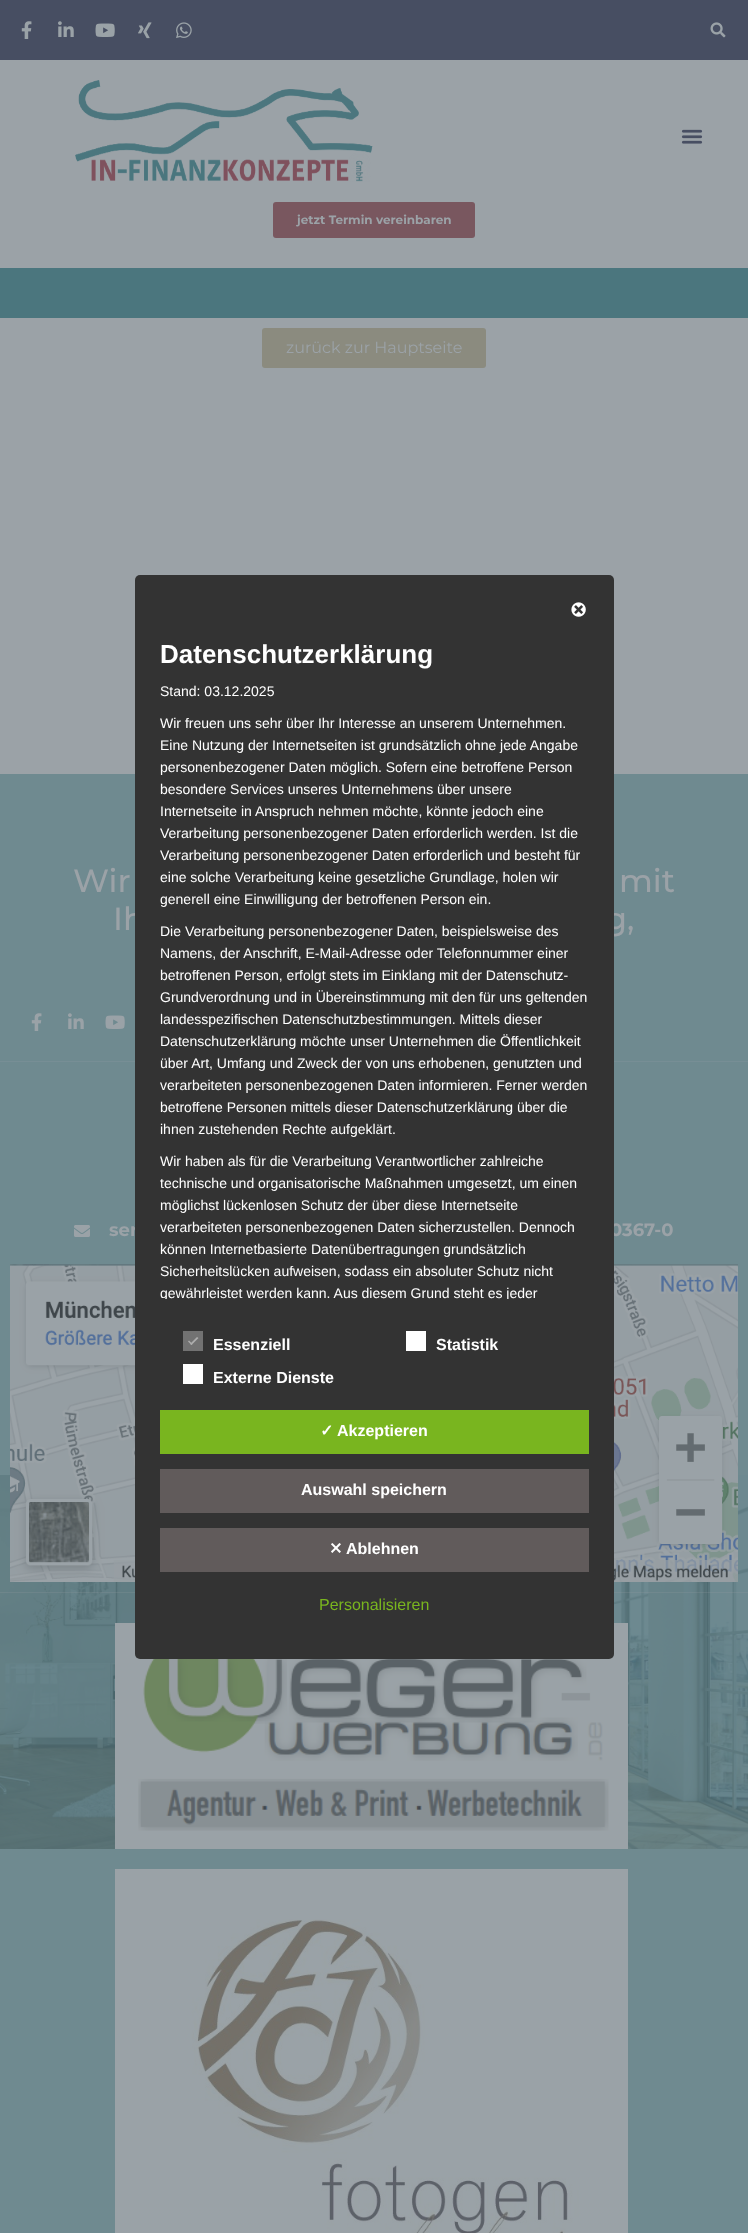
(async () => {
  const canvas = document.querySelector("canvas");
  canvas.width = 748;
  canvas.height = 2233;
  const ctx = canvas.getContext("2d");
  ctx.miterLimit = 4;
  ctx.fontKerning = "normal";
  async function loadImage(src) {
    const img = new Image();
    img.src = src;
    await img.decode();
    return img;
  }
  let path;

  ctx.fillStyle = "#9ba2a7";
  ctx.fillRect(0, 0, 748, 2233);
  ctx.fillStyle = "#6f8a90";
  ctx.fillRect(0, 774, 748, 1459);
  ctx.fillStyle = "#474e62";
  ctx.fillRect(0, 0, 748, 60);
  ctx.drawImage(await loadImage("img/1.png"), 21, 21, 11, 18);
  ctx.drawImage(await loadImage("img/2.png"), 58, 21, 16, 16);
  ctx.drawImage(await loadImage("img/3.png"), 95, 23, 20, 14);
  ctx.drawImage(await loadImage("img/4.png"), 138, 22, 14, 17);
  ctx.drawImage(await loadImage("img/5.png"), 176, 22, 16, 17);
  ctx.drawImage(await loadImage("img/6.png"), 710, 22, 16, 16);
  ctx.drawImage(await loadImage("img/7.png"), 75, 80, 298, 102);
  ctx.drawImage(await loadImage("img/8.png"), 681, 129, 22, 15);
  ctx.fillStyle = "#79575f";
  ctx.beginPath();
  ctx.roundRect(273, 202, 202, 36, 3);
  ctx.fill();
  ctx.fillStyle = "#4b767e";
  ctx.fillRect(0, 268, 748, 50);
  ctx.fillStyle = "#8b8b7f";
  ctx.beginPath();
  ctx.roundRect(262, 328, 224, 40, 3);
  ctx.fill();
  ctx.drawImage(await loadImage("img/10.png"), 0, 1475, 748, 374);
  ctx.fillStyle = "#778e95";
  ctx.fillRect(0, 1061, 748, 1);
  ctx.drawImage(await loadImage("img/11.png"), 31, 1013, 11, 18);
  ctx.drawImage(await loadImage("img/12.png"), 68, 1013, 16, 16);
  ctx.drawImage(await loadImage("img/13.png"), 105, 1015, 20, 14);
  ctx.drawImage(await loadImage("img/14.png"), 74, 1225, 16, 12);
  ctx.drawImage(await loadImage("img/15.png"), 10, 1264, 728, 318);
  ctx.fillStyle = "rgba(155, 162, 167, 0.2)";
  ctx.fillRect(0, 1592, 748, 1);
  ctx.drawImage(await loadImage("img/16.png"), 115, 1623, 513, 226);
  ctx.drawImage(await loadImage("img/17.png"), 115, 1869, 513, 364);
  ctx.font = "bold 12px Montserrat";
  ctx.fillStyle = "#9ba2a7";
  ctx.fillText("jetzt Termin vereinbaren", 297, 224);
  ctx.font = "16px Montserrat";
  ctx.fillText("zurück zur Hauptseite", 286, 353);
  ctx.font = "500 32px Montserrat";
  for (const [text, x, y] of [
    ["Wir", 73, 892],
    ["mit", 619, 892],
    ["Ih", 113, 930],
    ["g,", 605, 930],
  ]) {
    ctx.fillText(text, x, y);
  }
  ctx.font = "bold 18px Montserrat";
  ctx.fillText("ser", 109, 1236);
  ctx.fillText("0367-0", 610, 1236);
  ctx.fillStyle = "#333333";
  ctx.beginPath();
  ctx.roundRect(135, 575, 479, 1084, 5);
  ctx.fill();
  ctx.fillStyle = "#615b5b";
  ctx.fillRect(160, 1528, 429, 44);
  ctx.font = "bold 16px Liberation Sans";
  ctx.fillStyle = "#ffffff";
  ctx.fillText("Ablehnen", 346, 1554);
  ctx.font = "bold 16px DejaVu Sans";
  ctx.fillText("✕", 329, 1554);
  ctx.fillStyle = "#615b5b";
  ctx.fillRect(160, 1469, 429, 44);
  ctx.font = "bold 16px Liberation Sans";
  ctx.fillStyle = "#ffffff";
  ctx.fillText("Auswahl speichern", 301, 1495);
  ctx.fillStyle = "#79b51f";
  ctx.fillRect(160, 1410, 429, 44);
  ctx.fillStyle = "#ffffff";
  ctx.fillText("Akzeptieren", 337, 1436);
  ctx.font = "bold 16px DejaVu Sans";
  ctx.fillText("✓", 320, 1436);
  ctx.fillRect(183, 1364, 20, 20);
  ctx.font = "bold 16px Liberation Sans";
  ctx.fillText("Externe Dienste", 213, 1383);
  ctx.fillRect(406, 1331, 20, 20);
  ctx.fillText("Statistik", 436, 1350);
  ctx.fillStyle = "#727272";
  ctx.fillRect(183, 1331, 20, 20);
  ctx.fillStyle = "#adadad";
  path = new Path2D("M197 1337L198.5 1338L191.5 1345L190 1344Z");
  ctx.fill(path);
  path = new Path2D("M189 1340.5L192.5 1344L191.5 1345L188 1341.5Z");
  ctx.fill(path);
  ctx.fillStyle = "#ffffff";
  ctx.fillText("Essenziell", 213, 1350);
  ctx.save();
  ctx.beginPath();
  ctx.rect(160, 630, 439, 669);
  ctx.clip();
  ctx.font = "14px Liberation Sans";
  ctx.fillText("gewährleistet werden kann. Aus diesem Grund steht es jeder", 160, 1298);
  ctx.restore();
  ctx.font = "14px Liberation Sans";
  for (const [text, x, y] of [
    ["Sicherheitslücken aufweisen, sodass ein absoluter Schutz nicht", 160, 1276],
    ["können Internetbasierte Datenübertragungen grundsätzlich", 160, 1254],
    ["verarbeiteten personenbezogenen Daten sicherzustellen. Dennoch", 160, 1232],
    ["möglichst lückenlosen Schutz der über diese Internetseite", 160, 1210],
    ["technische und organisatorische Maßnahmen umgesetzt, um einen", 160, 1188],
    ["Wir haben als für die Verarbeitung Verantwortlicher zahlreiche", 160, 1166],
    ["ihnen zustehenden Rechte aufgeklärt.", 160, 1134],
    ["betroffene Personen mittels dieser Datenschutzerklärung über die", 160, 1112],
    ["verarbeiteten personenbezogenen Daten informieren. Ferner werden", 160, 1090],
    ["über Art, Umfang und Zweck der von uns erhobenen, genutzten und", 160, 1068],
    ["Datenschutzerklärung möchte unser Unternehmen die Öffentlichkeit", 160, 1046],
    ["landesspezifischen Datenschutzbestimmungen. Mittels dieser", 160, 1024],
    ["Grundverordnung und in Übereinstimmung mit den für uns geltenden", 160, 1002],
    ["betroffenen Person, erfolgt stets im Einklang mit der Datenschutz-", 160, 980],
    ["Namens, der Anschrift, E-Mail-Adresse oder Telefonnummer einer", 160, 958],
    ["Die Verarbeitung personenbezogener Daten, beispielsweise des", 160, 936],
    ["generell eine Einwilligung der betroffenen Person ein.", 160, 904],
    ["eine solche Verarbeitung keine gesetzliche Grundlage, holen wir", 160, 882],
    ["Verarbeitung personenbezogener Daten erforderlich und besteht für", 160, 860],
    ["Verarbeitung personenbezogener Daten erforderlich werden. Ist die", 160, 838],
    ["Internetseite in Anspruch nehmen möchte, könnte jedoch eine", 160, 816],
    ["besondere Services unseres Unternehmens über unsere", 160, 794],
    ["personenbezogener Daten möglich. Sofern eine betroffene Person", 160, 772],
    ["Eine Nutzung der Internetseiten ist grundsätzlich ohne jede Angabe", 160, 750],
    ["Wir freuen uns sehr über Ihr Interesse an unserem Unternehmen.", 160, 728],
    ["Stand: 03.12.2025", 160, 696],
  ]) {
    ctx.fillText(text, x, y);
  }
  ctx.font = "bold 26px Liberation Sans";
  ctx.fillText("Datenschutzerklärung", 160, 663);
  ctx.font = "16px Liberation Sans";
  ctx.fillStyle = "#79b51f";
  ctx.fillText("Personalisieren", 319, 1610);
  ctx.drawImage(await loadImage("img/9.png"), 571, 602, 15, 15);
})();
